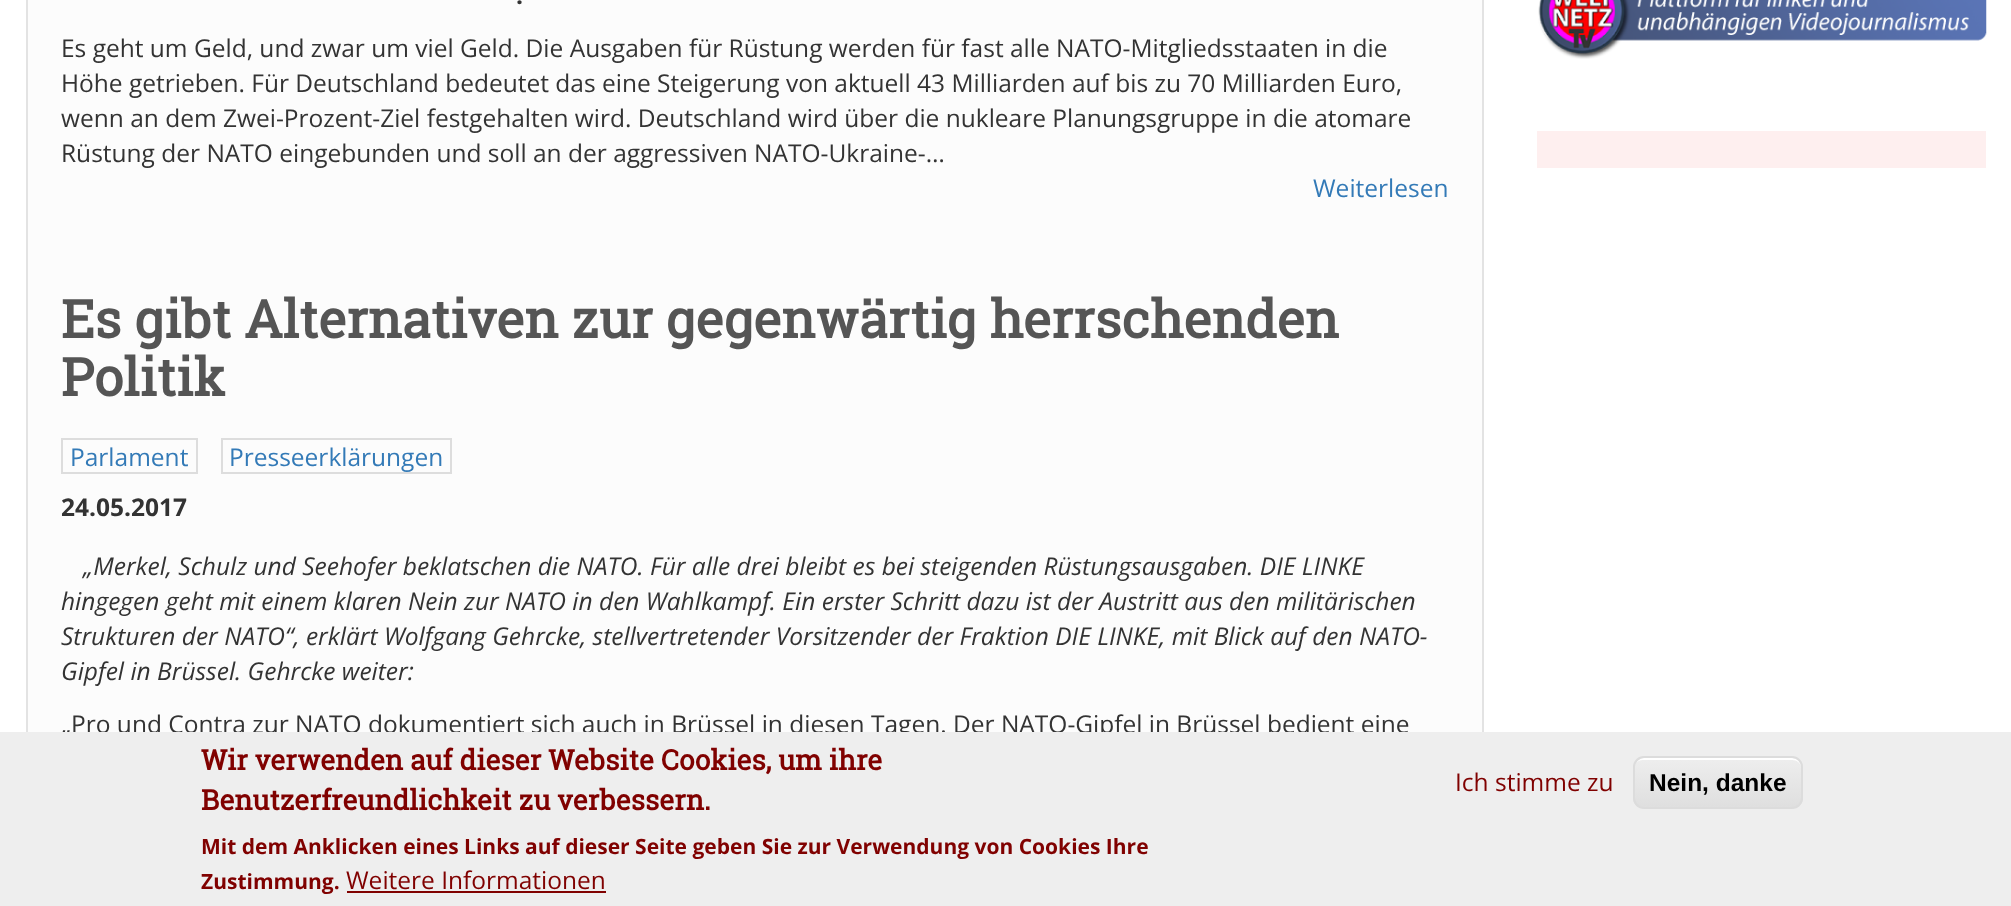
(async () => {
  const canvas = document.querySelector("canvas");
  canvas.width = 2011;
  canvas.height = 906;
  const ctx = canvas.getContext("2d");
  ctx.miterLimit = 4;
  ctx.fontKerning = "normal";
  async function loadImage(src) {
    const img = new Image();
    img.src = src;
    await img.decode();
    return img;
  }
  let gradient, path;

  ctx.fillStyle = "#ffffff";
  ctx.fillRect(0, 0, 2011, 906);
  ctx.fillStyle = "#fcfcfc";
  ctx.fillRect(28, 0, 1454, 732);
  ctx.strokeStyle = "#e3e3e3";
  ctx.lineWidth = 2;
  ctx.strokeRect(27, -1, 1456, 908);
  ctx.strokeStyle = "#dddddd";
  ctx.strokeRect(62, 439, 135, 34);
  ctx.strokeRect(222, 439, 229, 34);
  ctx.fillStyle = "#feefef";
  ctx.fillRect(1537, 131, 449, 37);
  ctx.drawImage(await loadImage("img/1.png"), 1538, 0, 449, 59);
  ctx.font = "bold 24.5px Open Sans";
  ctx.fillStyle = "#333333";
  ctx.fillText(".", 516, 4);
  ctx.font = "24.5px Open Sans";
  for (const [text, x, y] of [
    ["Es geht um Geld, und zwar um viel Geld. Die Ausgaben für Rüstung werden für fast alle NATO-Mitgliedsstaaten in die", 61, 57],
    ["Höhe getrieben. Für Deutschland bedeutet das eine Steigerung von aktuell 43 Milliarden auf bis zu 70 Milliarden Euro,", 61, 92],
    ["wenn an dem Zwei-Prozent-Ziel festgehalten wird. Deutschland wird über die nukleare Planungsgruppe in die atomare", 61, 127],
    ["Rüstung der NATO eingebunden und soll an der aggressiven NATO-Ukraine-…", 61, 162],
  ]) {
    ctx.fillText(text, x, y);
  }
  ctx.fillStyle = "#337ab7";
  ctx.fillText("Weiterlesen", 1313, 197);
  ctx.font = "bold 52.5px Roboto Slab";
  ctx.fillStyle = "#555555";
  ctx.fillText("Es gibt Alternativen zur gegenwärtig herrschenden", 61, 338);
  ctx.fillText("Politik", 61, 396);
  ctx.font = "24.5px Open Sans";
  ctx.fillStyle = "#337ab7";
  ctx.fillText("Parlament", 70, 466);
  ctx.fillText("Presseerklärungen", 229, 466);
  ctx.font = "bold 24.5px Open Sans";
  ctx.fillStyle = "#333333";
  ctx.fillText("24.05.2017", 61, 516);
  ctx.font = "italic 24.5px Open Sans";
  for (const [text, x, y] of [
    ["„Merkel, Schulz und Seehofer beklatschen die NATO. Für alle drei bleibt es bei steigenden Rüstungsausgaben. DIE LINKE", 83, 575],
    ["hingegen geht mit einem klaren Nein zur NATO in den Wahlkampf. Ein erster Schritt dazu ist der Austritt aus den militärischen", 61, 610],
    ["Strukturen der NATO“, erklärt Wolfgang Gehrcke, stellvertretender Vorsitzender der Fraktion DIE LINKE, mit Blick auf den NATO-", 61, 645],
    ["Gipfel in Brüssel. Gehrcke weiter:", 61, 680],
  ]) {
    ctx.fillText(text, x, y);
  }
  ctx.font = "24.5px Open Sans";
  ctx.fillText("„Pro und Contra zur NATO dokumentiert sich auch in Brüssel in diesen Tagen. Der NATO-Gipfel in Brüssel bedient eine", 61, 733);
  ctx.fillStyle = "#eeeeee";
  ctx.fillRect(0, 732, 2011, 174);
  ctx.font = "bold 28px Roboto Slab";
  ctx.fillStyle = "#800100";
  ctx.fillText("Wir verwenden auf dieser Website Cookies, um ihre", 201, 770);
  ctx.fillText("Benutzerfreundlichkeit zu verbessern.", 201, 810);
  ctx.font = "bold 21px Open Sans";
  ctx.fillText("Mit dem Anklicken eines Links auf dieser Seite geben Sie zur Verwendung von Cookies Ihre", 201, 854);
  ctx.fillText("Zustimmung.", 201, 889);
  ctx.font = "24.5px Open Sans";
  ctx.fillText("Weitere Informationen", 346, 889);
  ctx.fillRect(347, 891, 259, 2);
  ctx.fillText("Ich stimme zu", 1455, 791);
  ctx.save();
  ctx.beginPath();
  ctx.roundRect(1633, 756, 170, 53, 11);
  ctx.clip();
  gradient = ctx.createLinearGradient(1718, 758, 1718, 807);
  gradient.addColorStop(0.05, "#ededed");
  gradient.addColorStop(1, "#dfdfdf");
  ctx.fillStyle = gradient;
  ctx.fillRect(1633, 758, 170, 49);
  ctx.restore();
  ctx.fillStyle = "#ffffff";
  path = new Path2D("M1643 760H1792C1797 760 1801 763 1801 768V767C1801 762 1797 758 1792 758H1644C1641 758 1638 760 1636 763C1638 761 1640 760 1643 760Z");
  ctx.fill(path);
  ctx.beginPath();
  ctx.roundRect(1634, 757, 168, 51, 10);
  ctx.strokeStyle = "#dcdcdc";
  ctx.stroke();
  ctx.font = "bold 24.5px Liberation Sans";
  ctx.fillStyle = "#000000";
  ctx.fillText("Nein, danke", 1649, 791);
})();
